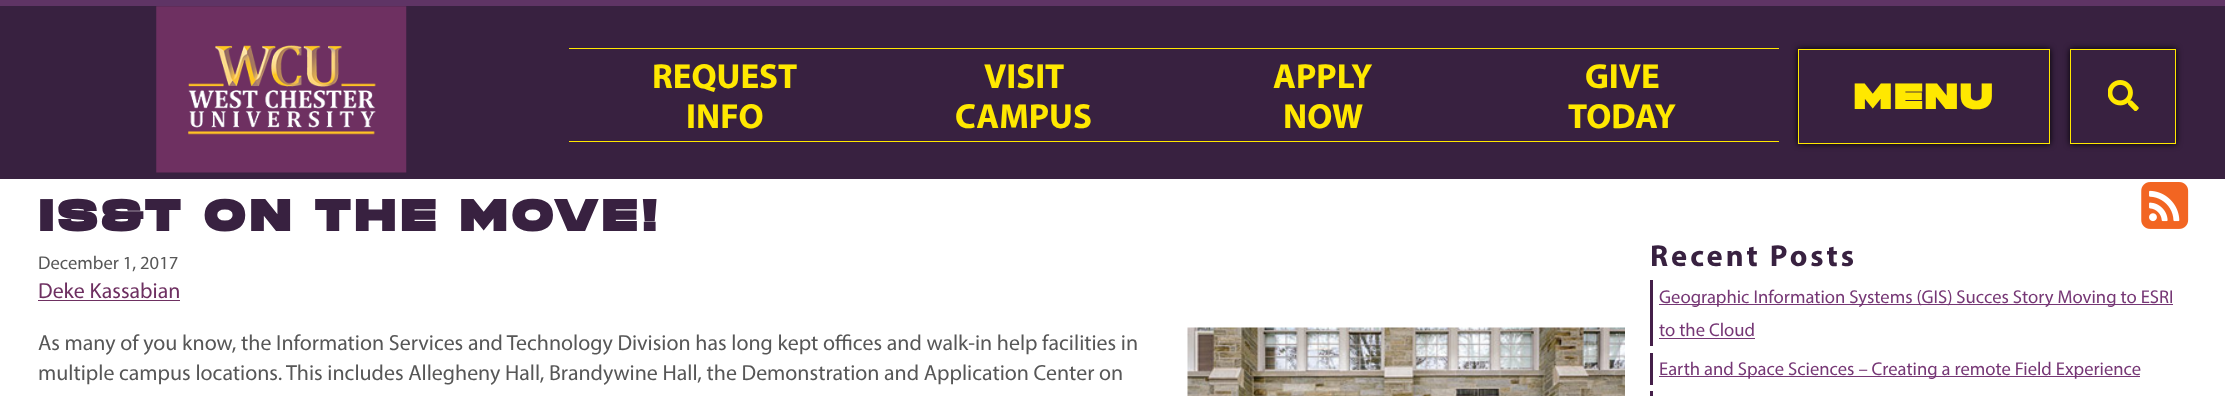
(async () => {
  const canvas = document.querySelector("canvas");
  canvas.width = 2225;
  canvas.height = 396;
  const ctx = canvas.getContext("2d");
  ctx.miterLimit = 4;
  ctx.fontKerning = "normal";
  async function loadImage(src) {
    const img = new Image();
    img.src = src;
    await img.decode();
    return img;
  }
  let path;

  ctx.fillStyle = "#382140";
  ctx.fillRect(0, 0, 2225, 396);
  ctx.fillStyle = "#5f3465";
  ctx.fillRect(0, 0, 2225, 6);
  ctx.drawImage(await loadImage("img/1.png"), 156, 6, 251, 167);
  ctx.fillStyle = "#ffe800";
  ctx.fillRect(569, 48, 1210, 1);
  ctx.fillRect(569, 141, 1210, 1);
  ctx.save();
  path = new Path2D("M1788 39H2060V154H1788ZM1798 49H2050V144H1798Z");
  ctx.clip(path, "evenodd");
  ctx.fillStyle = "#000000";
  ctx.filter = "blur(3px)";
  ctx.beginPath();
  ctx.rect(1798, 49, 252, 95);
  ctx.fill();
  ctx.filter = "none";
  ctx.restore();
  ctx.strokeStyle = "#ffe800";
  ctx.strokeRect(1798.5, 49.5, 251, 94);
  ctx.save();
  path = new Path2D("M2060 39H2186V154H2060ZM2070 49H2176V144H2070Z");
  ctx.clip(path, "evenodd");
  ctx.fillStyle = "#000000";
  ctx.filter = "blur(3px)";
  ctx.beginPath();
  ctx.rect(2070, 49, 106, 95);
  ctx.fill();
  ctx.filter = "none";
  ctx.restore();
  ctx.strokeRect(2070.5, 49.5, 105, 94);
  ctx.drawImage(await loadImage("img/2.png"), 2108, 80, 31, 31);
  ctx.fillStyle = "#ffffff";
  ctx.fillRect(0, 179, 2225, 217);
  ctx.fillStyle = "#6e3061";
  ctx.fillRect(38, 300, 142, 1);
  ctx.drawImage(await loadImage("img/3.png"), 1187, 327, 438, 69);
  ctx.drawImage(await loadImage("img/4.png"), 2141, 182, 48, 47);
  for (const [x, y, w, h, color] of [
    [1650, 280, 3, 66, "#441f49"],
    [1659, 304, 514, 1, "#763775"],
    [1659, 338, 96, 1, "#763775"],
    [1650, 353, 3, 32, "#441f49"],
    [1659, 376, 481, 1, "#763775"],
    [1650, 391, 3, 5, "#441f49"],
  ]) {
    ctx.fillStyle = color;
    ctx.fillRect(x, y, w, h);
  }
  ctx.font = "bold 35px Myriad";
  ctx.fillStyle = "#ffe800";
  for (const [text, x, y] of [
    ["REQUEST", 652, 88],
    ["INFO", 686, 128],
    ["VISIT", 984, 88],
    ["CAMPUS", 955, 128],
    ["APPLY", 1273, 88],
    ["NOW", 1283, 128],
    ["GIVE", 1585, 88],
    ["TODAY", 1568, 128],
  ]) {
    ctx.fillText(text, x, y);
  }
  ctx.letterSpacing = "2px";
  ctx.font = "bold 35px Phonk";
  ctx.fillText("MENU", 1853, 109);
  ctx.letterSpacing = "4px";
  ctx.font = "bold 43.75px Phonk";
  ctx.fillStyle = "#382140";
  ctx.fillText("IS&T ON THE MOVE!", 38, 231);
  ctx.letterSpacing = "0px";
  ctx.font = "18.6px Myriad";
  ctx.fillStyle = "#575757";
  ctx.fillText("December 1, 2017", 38, 269);
  ctx.font = "21.88px Myriad";
  ctx.fillStyle = "#6e3061";
  ctx.fillText("Deke Kassabian", 38, 298);
  ctx.fillStyle = "#575757";
  ctx.fillText("As many of you know, the Information Services and Technology Division has long kept offices and walk-in help facilities in", 38, 350);
  ctx.fillText("multiple campus locations. This includes Allegheny Hall, Brandywine Hall, the Demonstration and Application Center on", 38, 380);
  ctx.letterSpacing = "3px";
  ctx.font = "bold 30.5px Myriad";
  ctx.fillStyle = "#382140";
  ctx.fillText("Recent Posts", 1650, 266);
  ctx.letterSpacing = "0px";
  ctx.font = "18.6px Myriad";
  ctx.fillStyle = "#763775";
  for (const [text, x, y] of [
    ["Geographic Information Systems (GIS) Succes Story Moving to ESRI", 1659, 303],
    ["to the Cloud", 1659, 336],
    ["Earth and Space Sciences – Creating a remote Field Experience", 1659, 375],
  ]) {
    ctx.fillText(text, x, y);
  }
})();
